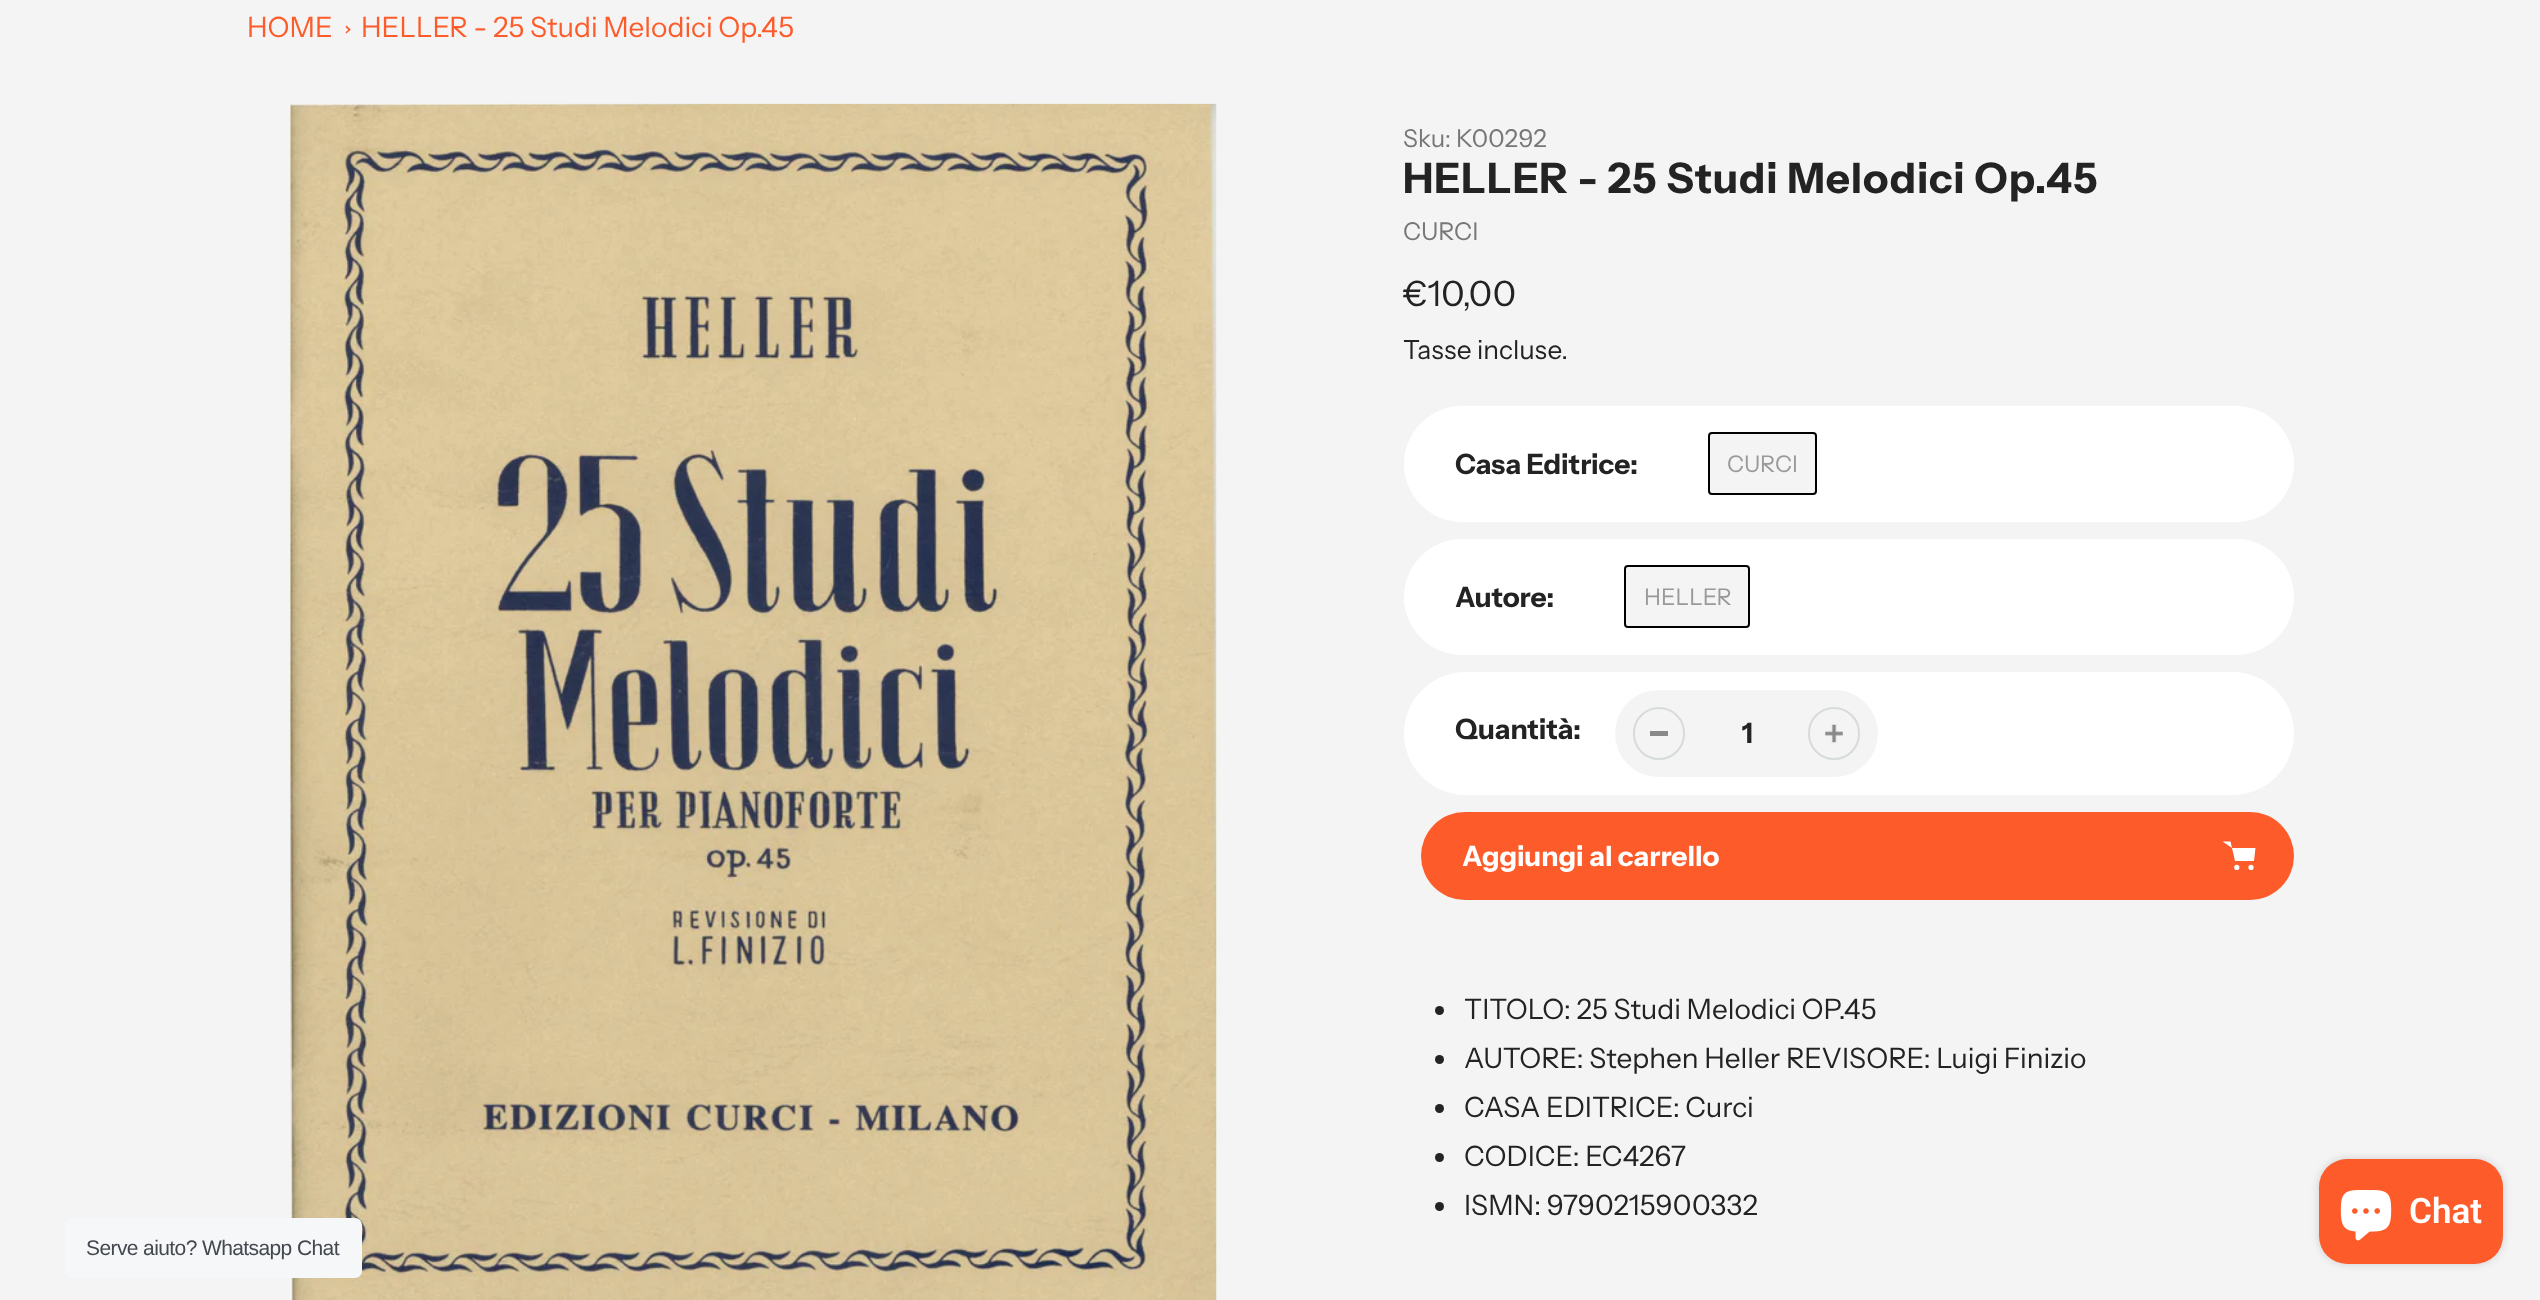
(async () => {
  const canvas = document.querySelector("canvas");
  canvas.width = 2540;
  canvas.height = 1300;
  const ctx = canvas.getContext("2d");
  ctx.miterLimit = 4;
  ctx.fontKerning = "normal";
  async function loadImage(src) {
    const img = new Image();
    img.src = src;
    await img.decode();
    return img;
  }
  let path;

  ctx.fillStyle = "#f4f4f4";
  ctx.fillRect(0, 0, 2540, 1300);
  ctx.fillStyle = "#fd5b2a";
  path = new Path2D("M346.5 25.5L350.5 29.5L349.5 31L345.5 27Z");
  ctx.fill(path);
  path = new Path2D("M349.5 28.5L350.5 29.5L346.5 33.5L345.5 32.5Z");
  ctx.fill(path);
  ctx.drawImage(await loadImage("img/1.png"), 290, 103, 927, 1197);
  ctx.fillStyle = "#ffffff";
  ctx.beginPath();
  ctx.roundRect(1404, 406, 890, 116, 58);
  ctx.fill();
  ctx.fillStyle = "#f4f4f4";
  ctx.beginPath();
  ctx.roundRect(1709, 433, 107, 61, 3);
  ctx.fill();
  ctx.strokeStyle = "#000000";
  ctx.lineWidth = 2;
  ctx.stroke();
  ctx.fillStyle = "#ffffff";
  ctx.beginPath();
  ctx.roundRect(1404, 539, 890, 116, 58);
  ctx.fill();
  ctx.fillStyle = "#f4f4f4";
  ctx.beginPath();
  ctx.roundRect(1625, 566, 124, 61, 3);
  ctx.fill();
  ctx.stroke();
  ctx.fillStyle = "#ffffff";
  ctx.beginPath();
  ctx.roundRect(1404, 672, 890, 123, 61.5);
  ctx.fill();
  ctx.fillStyle = "#f4f4f4";
  ctx.beginPath();
  ctx.roundRect(1615, 690, 263, 87, 43.5);
  ctx.fill();
  ctx.fillStyle = "#898989";
  ctx.fillRect(1650, 731, 18, 5);
  ctx.beginPath();
  ctx.roundRect(1634, 708, 50, 51, 25);
  ctx.strokeStyle = "#d7dbdb";
  ctx.stroke();
  ctx.drawImage(await loadImage("img/2.png"), 1825, 724, 18, 19);
  ctx.beginPath();
  ctx.roundRect(1809, 708, 50, 51, 25);
  ctx.stroke();
  ctx.fillStyle = "#fd5b2a";
  ctx.beginPath();
  ctx.roundRect(1421, 812, 873, 88, 44);
  ctx.fill();
  ctx.fillStyle = "#ffffff";
  ctx.beginPath();
  ctx.arc(2236.8, 867.4, 2.6, 0, Math.PI * 2);
  ctx.fill();
  ctx.beginPath();
  ctx.arc(2251, 867.4, 2.6, 0, Math.PI * 2);
  ctx.fill();
  path = new Path2D("M2232 848H2255.5L2254 861H2235L2230.5 841.5H2222.5");
  ctx.fill(path, "evenodd");
  ctx.fillStyle = "#232323";
  ctx.beginPath();
  ctx.arc(1439.5, 1010.5, 4.5, 0, Math.PI * 2);
  ctx.fill();
  ctx.beginPath();
  ctx.arc(1439.5, 1059.5, 4.5, 0, Math.PI * 2);
  ctx.fill();
  ctx.beginPath();
  ctx.arc(1439.5, 1108.5, 4.5, 0, Math.PI * 2);
  ctx.fill();
  ctx.beginPath();
  ctx.arc(1439.5, 1157.5, 4.5, 0, Math.PI * 2);
  ctx.fill();
  ctx.beginPath();
  ctx.arc(1439.5, 1206.5, 4.5, 0, Math.PI * 2);
  ctx.fill();
  ctx.fillStyle = "rgba(0, 0, 0, 0.15)";
  ctx.filter = "blur(4.5px)";
  ctx.beginPath();
  ctx.roundRect(2319, 1159, 184, 105, 28);
  ctx.fill();
  ctx.filter = "none";
  ctx.fillStyle = "#fd5b2a";
  ctx.beginPath();
  ctx.roundRect(2319, 1159, 184, 105, 28);
  ctx.fill();
  ctx.drawImage(await loadImage("img/3.png"), 2340, 1190, 52, 51);
  ctx.fillStyle = "#f5f7f9";
  ctx.beginPath();
  ctx.roundRect(65, 1218, 297, 60, 7);
  ctx.fill();
  ctx.font = "28px Instrument Sans";
  ctx.fillStyle = "#fd5b2a";
  ctx.fillText("HOME", 247, 37);
  ctx.fillText("HELLER - 25 Studi Melodici Op.45", 361, 37);
  ctx.font = "24.5px Instrument Sans";
  ctx.fillStyle = "#777777";
  ctx.fillText("Sku: K00292", 1403, 147);
  ctx.letterSpacing = "0.9px";
  ctx.font = "bold 42px Instrument Sans";
  ctx.fillStyle = "#232323";
  ctx.fillText("HELLER - 25 Studi Melodici Op.45", 1403, 193);
  ctx.letterSpacing = "0px";
  ctx.font = "24.5px Instrument Sans";
  ctx.fillStyle = "#777777";
  ctx.fillText("CURCI", 1403, 240);
  ctx.font = "35px Instrument Sans";
  ctx.fillStyle = "#232323";
  ctx.fillText("€10,00", 1403, 306);
  ctx.font = "26.25px Instrument Sans";
  ctx.fillText("Tasse incluse.", 1403, 359);
  ctx.font = "bold 28px Instrument Sans";
  ctx.fillText("Casa Editrice:", 1455, 474);
  ctx.font = "23px Instrument Sans";
  ctx.fillStyle = "#999999";
  ctx.fillText("CURCI", 1727, 472);
  ctx.font = "bold 28px Instrument Sans";
  ctx.fillStyle = "#232323";
  ctx.fillText("Autore:", 1455, 607);
  ctx.font = "23px Instrument Sans";
  ctx.fillStyle = "#999999";
  ctx.fillText("HELLER", 1644, 605);
  ctx.font = "bold 28px Instrument Sans";
  ctx.fillStyle = "#232323";
  ctx.fillText("Quantità:", 1455, 739);
  ctx.fillText("1", 1742, 743);
  ctx.fillStyle = "#ffffff";
  ctx.fillText("Aggiungi al carrello", 1462, 866);
  ctx.font = "28px Instrument Sans";
  ctx.fillStyle = "#232323";
  for (const [text, x, y] of [
    ["TITOLO: 25 Studi Melodici OP.45", 1464, 1019],
    ["AUTORE: Stephen Heller REVISORE: Luigi Finizio", 1464, 1068],
    ["CASA EDITRICE: Curci", 1464, 1117],
    ["CODICE: EC4267", 1464, 1166],
    ["ISMN: 9790215900332", 1464, 1215],
  ]) {
    ctx.fillText(text, x, y);
  }
  ctx.font = "600 35px Roboto";
  ctx.fillStyle = "#ffffff";
  ctx.fillText("Chat", 2409, 1223);
  ctx.letterSpacing = "-0.6px";
  ctx.font = "21px Liberation Sans";
  ctx.fillStyle = "#43474e";
  ctx.fillText("Serve aiuto? Whatsapp Chat", 86, 1255);
})();
